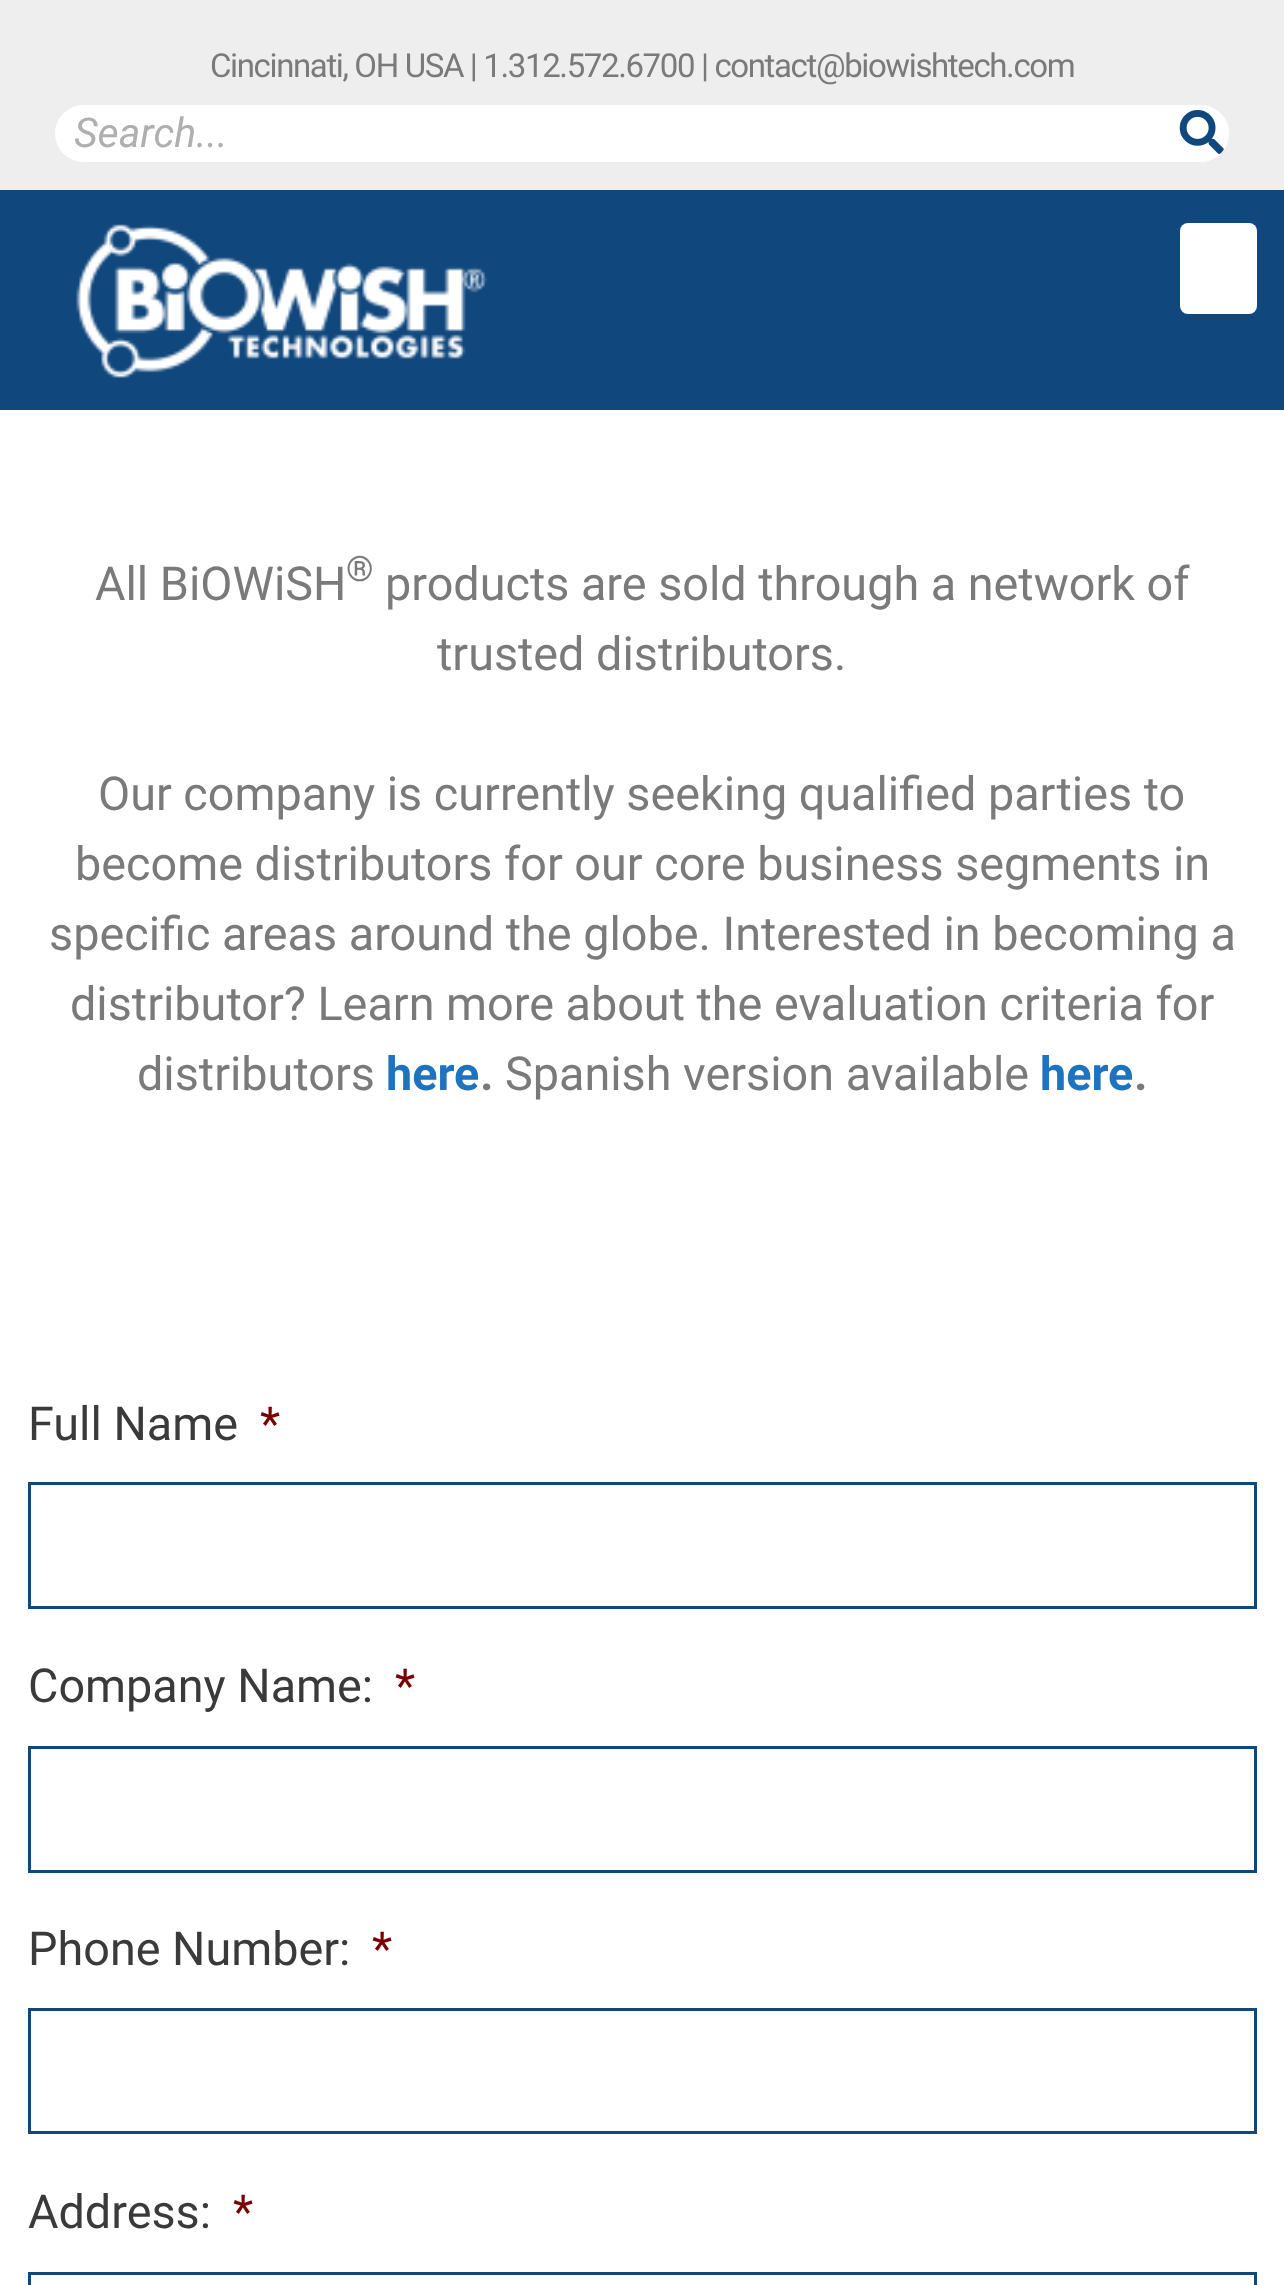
(async () => {
  const canvas = document.querySelector("canvas");
  canvas.width = 1284;
  canvas.height = 2285;
  const ctx = canvas.getContext("2d");
  ctx.miterLimit = 4;
  ctx.fontKerning = "normal";
  async function loadImage(src) {
    const img = new Image();
    img.src = src;
    await img.decode();
    return img;
  }

  ctx.fillStyle = "#ffffff";
  ctx.fillRect(0, 0, 1284, 2285);
  ctx.fillStyle = "#eeeeee";
  ctx.fillRect(0, 0, 1284, 190);
  ctx.fillStyle = "#ffffff";
  ctx.beginPath();
  ctx.roundRect(55, 105, 1174, 57, 28.5);
  ctx.fill();
  ctx.beginPath();
  ctx.roundRect(1172, 105, 57, 57, [0, 28.5, 28.5, 0]);
  ctx.fill();
  ctx.drawImage(await loadImage("img/1.png"), 1179, 110, 45, 44);
  ctx.fillStyle = "#10477d";
  ctx.fillRect(0, 190, 1284, 220);
  ctx.drawImage(await loadImage("img/2.png"), 76, 223, 412, 155);
  ctx.fillStyle = "#ffffff";
  ctx.beginPath();
  ctx.roundRect(1180, 223, 77, 91, 8);
  ctx.fill();
  ctx.strokeStyle = "#10477d";
  ctx.lineWidth = 3;
  ctx.strokeRect(29.5, 1483.5, 1226, 124);
  ctx.strokeRect(29.5, 1747.5, 1226, 124);
  ctx.strokeRect(29.5, 2009.5, 1226, 123);
  ctx.strokeRect(29.5, 2273.5, 1226, 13);
  ctx.letterSpacing = "-1.38px";
  ctx.font = "33px Roboto";
  ctx.fillStyle = "#7a7a7a";
  ctx.fillText("Cincinnati, OH USA | 1.312.572.6700 | contact@biowishtech.com", 210, 77);
  ctx.letterSpacing = "0px";
  ctx.font = "italic 41px Roboto";
  ctx.fillStyle = "#afafaf";
  ctx.fillText("Search...", 74, 147);
  ctx.font = "46.75px Roboto";
  ctx.fillStyle = "#7a7a7a";
  ctx.fillText("All BiOWiSH", 95, 600);
  ctx.font = "35px Roboto";
  ctx.fillText("®", 346, 581);
  ctx.font = "46.75px Roboto";
  for (const [text, x, y] of [
    ["products are sold through a network of", 385, 600],
    ["trusted distributors.", 437, 670],
    ["Our company is currently seeking qualified parties to", 98, 810],
    ["become distributors for our core business segments in", 75, 880],
    ["specific areas around the globe. Interested in becoming a", 49, 950],
    ["distributor? Learn more about the evaluation criteria for", 70, 1020],
    ["distributors", 137, 1090],
  ]) {
    ctx.fillText(text, x, y);
  }
  ctx.font = "bold 46.75px Roboto";
  ctx.fillStyle = "#1e73be";
  ctx.fillText("here", 386, 1090);
  ctx.fillStyle = "#7a7a7a";
  ctx.fillText(".", 480, 1090);
  ctx.font = "46.75px Roboto";
  ctx.fillText("Spanish version available", 505, 1090);
  ctx.font = "bold 46.75px Roboto";
  ctx.fillStyle = "#1e73be";
  ctx.fillText("here", 1040, 1090);
  ctx.fillStyle = "#7a7a7a";
  ctx.fillText(".", 1134, 1090);
  ctx.font = "46.75px Roboto";
  ctx.fillStyle = "#3a3a3a";
  ctx.fillText("Full Name", 28, 1440);
  ctx.fillStyle = "#790000";
  ctx.fillText("*", 260, 1440);
  ctx.fillStyle = "#3a3a3a";
  ctx.fillText("Company Name:", 28, 1702);
  ctx.fillStyle = "#790000";
  ctx.fillText("*", 395, 1702);
  ctx.fillStyle = "#3a3a3a";
  ctx.fillText("Phone Number:", 28, 1965);
  ctx.fillStyle = "#790000";
  ctx.fillText("*", 372, 1965);
  ctx.fillStyle = "#3a3a3a";
  ctx.fillText("Address:", 28, 2228);
  ctx.fillStyle = "#790000";
  ctx.fillText("*", 233, 2228);
})();
